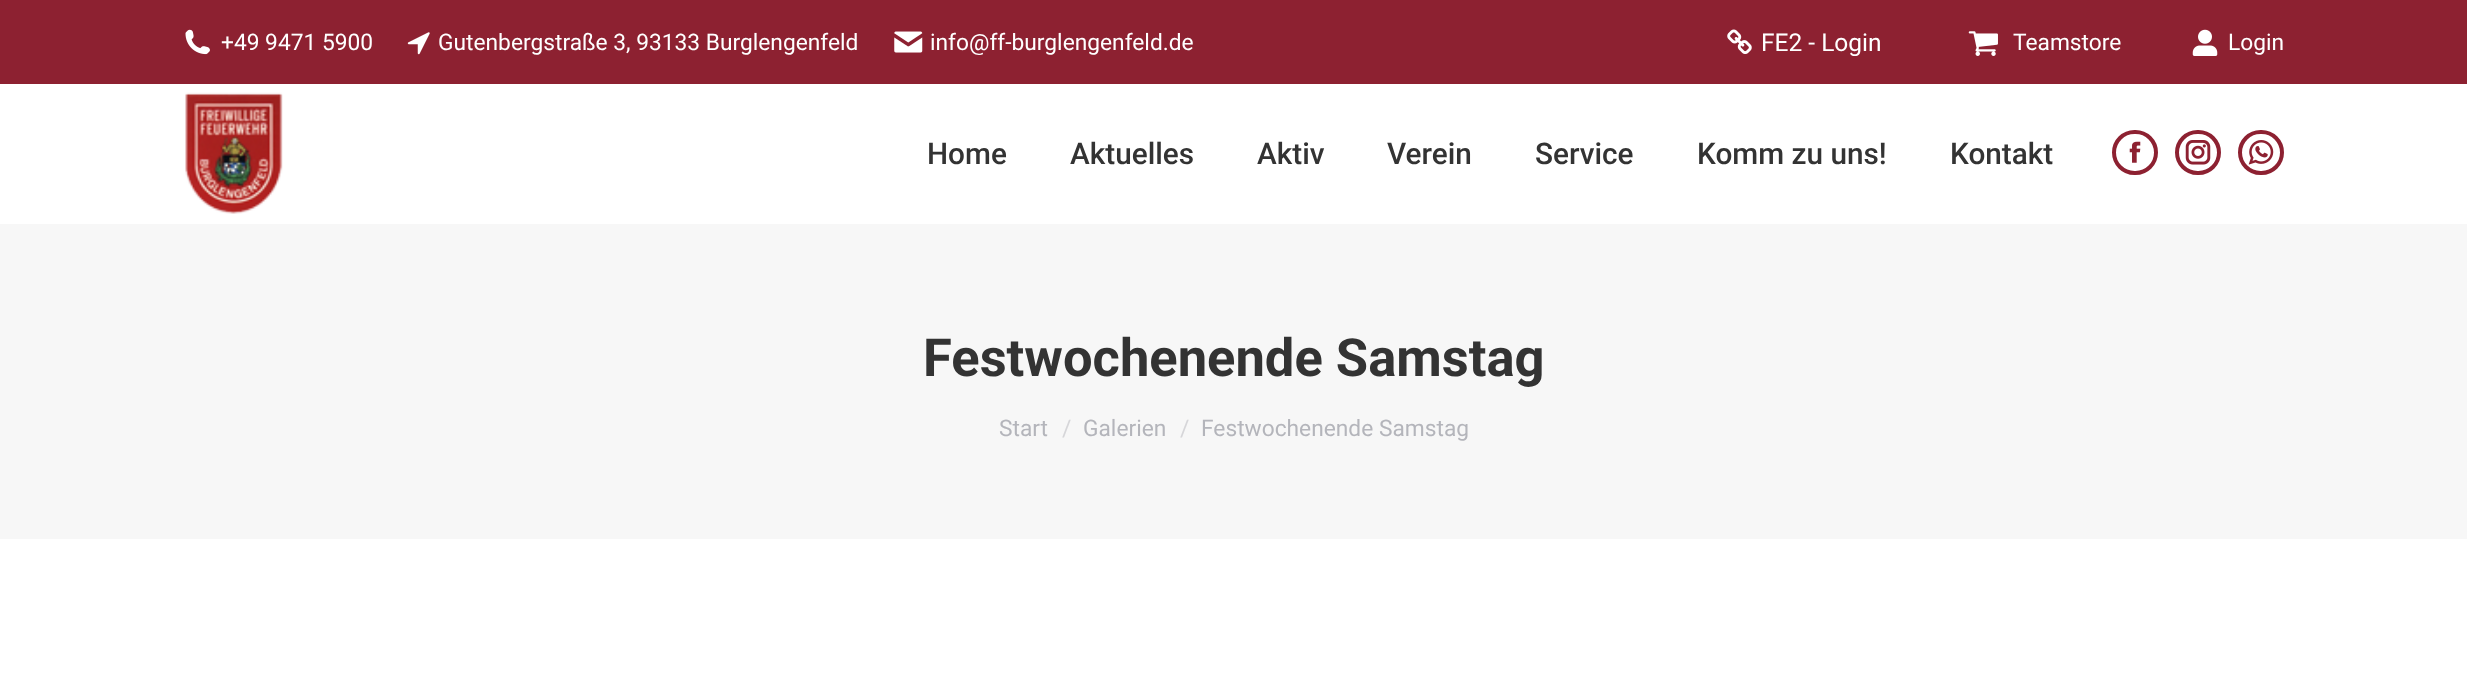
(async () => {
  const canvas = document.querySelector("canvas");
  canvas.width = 2467;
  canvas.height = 685;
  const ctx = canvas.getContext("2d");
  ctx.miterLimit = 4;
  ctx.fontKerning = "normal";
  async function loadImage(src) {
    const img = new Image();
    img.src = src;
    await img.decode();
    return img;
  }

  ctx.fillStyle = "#ffffff";
  ctx.fillRect(0, 0, 2467, 685);
  ctx.fillStyle = "#8d2131";
  ctx.fillRect(0, 0, 2467, 84);
  ctx.drawImage(await loadImage("img/1.png"), 185, 29, 25, 26);
  ctx.drawImage(await loadImage("img/2.png"), 407, 32, 23, 23);
  ctx.drawImage(await loadImage("img/3.png"), 894, 31, 29, 22);
  ctx.drawImage(await loadImage("img/4.png"), 1727, 29, 25, 25);
  ctx.drawImage(await loadImage("img/5.png"), 1968, 31, 30, 25);
  ctx.drawImage(await loadImage("img/6.png"), 2192, 29, 26, 27);
  ctx.drawImage(await loadImage("img/7.png"), 185, 92, 98, 122);
  ctx.beginPath();
  ctx.roundRect(2114, 132, 42, 41, 20.5);
  ctx.strokeStyle = "#8d2131";
  ctx.lineWidth = 4;
  ctx.stroke();
  ctx.drawImage(await loadImage("img/8.png"), 2129, 141, 12, 22);
  ctx.beginPath();
  ctx.roundRect(2177, 132, 42, 41, 20.5);
  ctx.stroke();
  ctx.drawImage(await loadImage("img/9.png"), 2185, 140, 26, 25);
  ctx.beginPath();
  ctx.roundRect(2240, 132, 42, 41, 20.5);
  ctx.stroke();
  ctx.drawImage(await loadImage("img/10.png"), 2248, 140, 26, 25);
  ctx.fillStyle = "#f7f7f7";
  ctx.fillRect(0, 224, 2467, 315);
  ctx.font = "22.75px Roboto";
  ctx.fillStyle = "#ffffff";
  for (const [text, x, y] of [
    ["+49 9471 5900", 221, 50],
    ["Gutenbergstraße 3, 93133 Burglengenfeld", 438, 50],
    ["info@ff-burglengenfeld.de", 930, 50],
  ]) {
    ctx.fillText(text, x, y);
  }
  ctx.font = "24.5px Roboto";
  ctx.fillText("FE2 - Login", 1761, 51);
  ctx.font = "22.75px Roboto";
  ctx.fillText("Teamstore", 2013, 50);
  ctx.fillText("Login", 2228, 50);
  ctx.font = "500 29.75px Roboto";
  ctx.fillStyle = "#333333";
  for (const [text, x, y] of [
    ["Home", 927, 164],
    ["Aktuelles", 1070, 164],
    ["Aktiv", 1257, 164],
    ["Verein", 1387, 164],
    ["Service", 1535, 164],
    ["Komm zu uns!", 1697, 164],
    ["Kontakt", 1950, 164],
  ]) {
    ctx.fillText(text, x, y);
  }
  ctx.font = "bold 52.5px Roboto";
  ctx.fillText("Festwochenende Samstag", 923, 376);
  ctx.font = "22.75px Roboto";
  ctx.fillStyle = "#b4b5bb";
  ctx.fillText("Start", 999, 436);
  ctx.fillStyle = "#d6d6d9";
  ctx.fillText("/", 1062, 436);
  ctx.fillStyle = "#b4b5bb";
  ctx.fillText("Galerien", 1083, 436);
  ctx.fillStyle = "#d6d6d9";
  ctx.fillText("/", 1180, 436);
  ctx.fillStyle = "#b4b5bb";
  ctx.fillText("Festwochenende Samstag", 1201, 436);
})();
